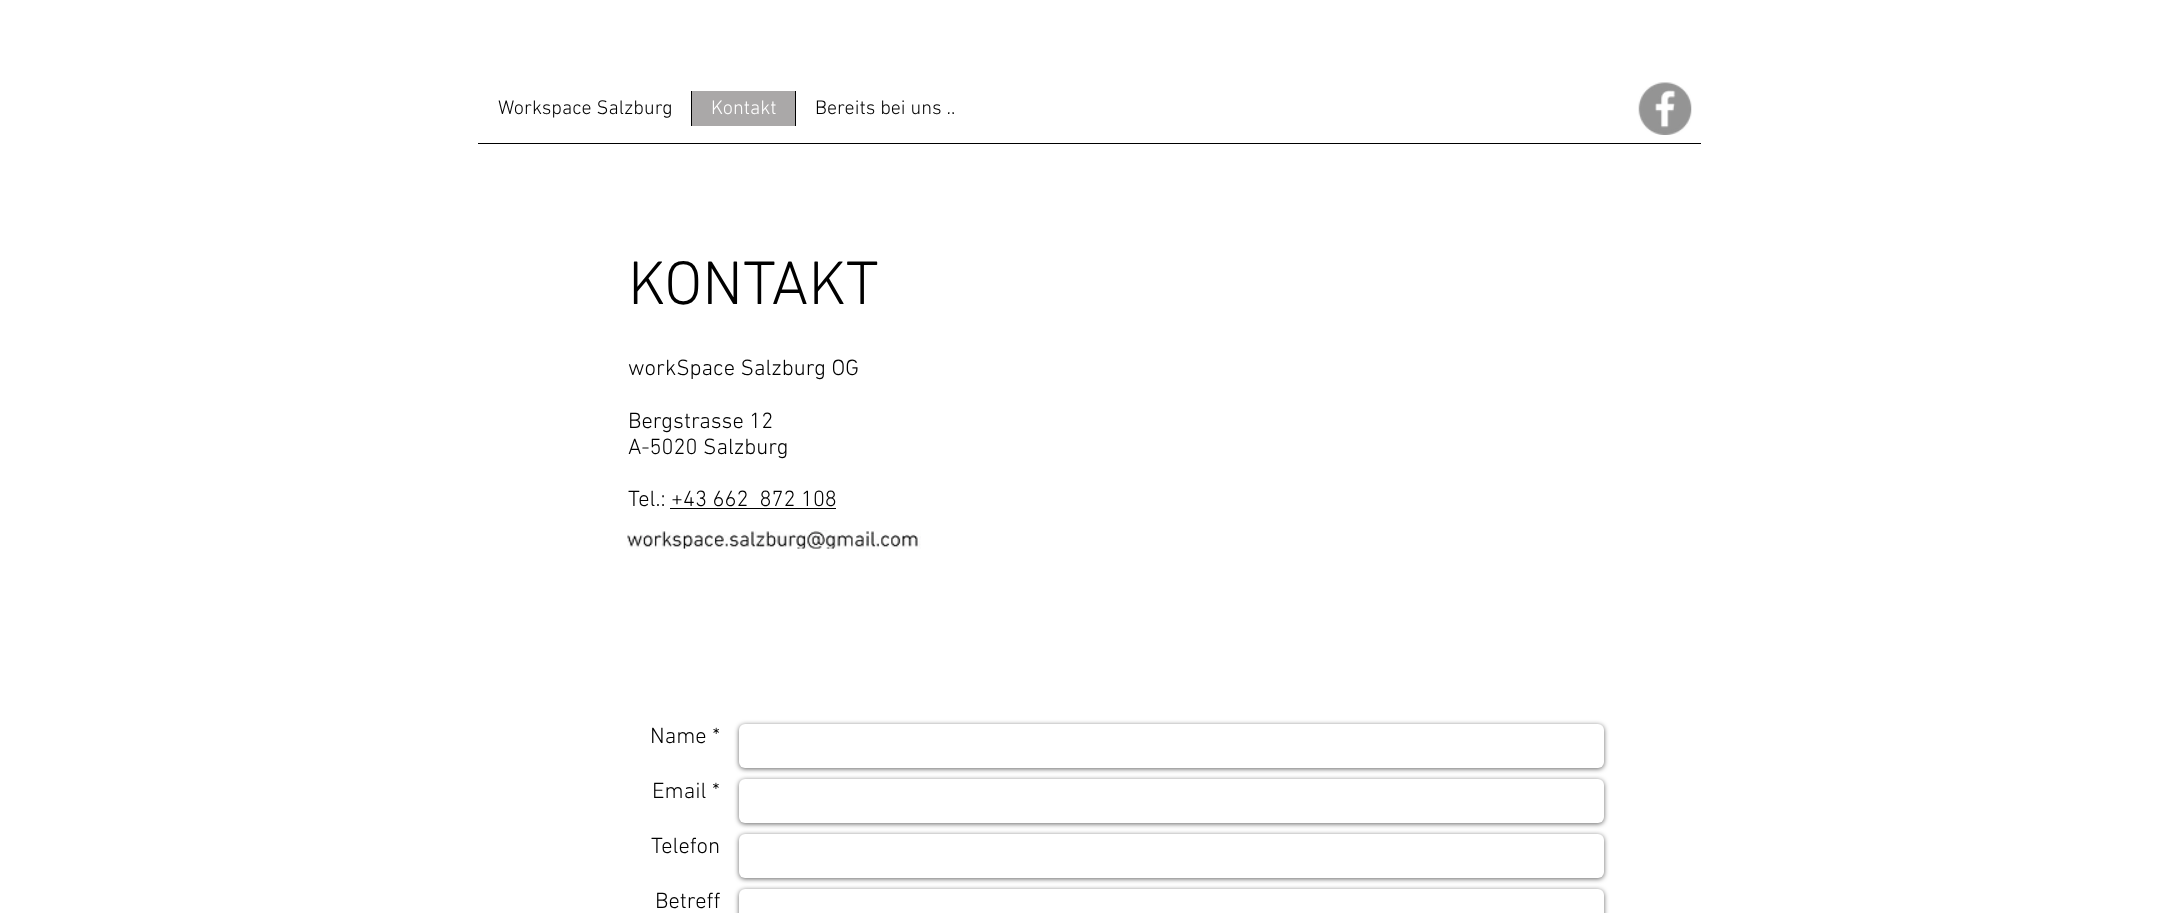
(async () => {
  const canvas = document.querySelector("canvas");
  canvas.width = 2179;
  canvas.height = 913;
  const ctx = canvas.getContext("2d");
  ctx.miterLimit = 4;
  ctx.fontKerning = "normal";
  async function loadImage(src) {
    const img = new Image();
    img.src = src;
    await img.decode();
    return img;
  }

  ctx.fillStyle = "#ffffff";
  ctx.fillRect(0, 0, 2179, 913);
  for (const [x, y, w, h, color] of [
    [692, 91, 103, 35, "#aaa8a8"],
    [691, 91, 1, 35, "#000000"],
    [795, 91, 1, 35, "#000000"],
  ]) {
    ctx.fillStyle = color;
    ctx.fillRect(x, y, w, h);
  }
  ctx.drawImage(await loadImage("img/1.png"), 1638, 82, 54, 53);
  ctx.fillRect(478, 143, 1223, 1);
  ctx.fillRect(670, 508, 166, 1);
  ctx.drawImage(await loadImage("img/2.png"), 627, 530, 294, 19);
  ctx.fillStyle = "rgba(0, 0, 0, 0.6)";
  ctx.filter = "blur(2.5px)";
  ctx.beginPath();
  ctx.roundRect(739, 725, 865, 44, 6);
  ctx.fill();
  ctx.filter = "none";
  ctx.fillStyle = "#ffffff";
  ctx.beginPath();
  ctx.roundRect(739, 724, 865, 44, 6);
  ctx.fill();
  ctx.fillStyle = "rgba(0, 0, 0, 0.6)";
  ctx.filter = "blur(2.5px)";
  ctx.beginPath();
  ctx.roundRect(739, 780, 865, 44, 6);
  ctx.fill();
  ctx.filter = "none";
  ctx.fillStyle = "#ffffff";
  ctx.beginPath();
  ctx.roundRect(739, 779, 865, 44, 6);
  ctx.fill();
  ctx.fillStyle = "rgba(0, 0, 0, 0.6)";
  ctx.filter = "blur(2.5px)";
  ctx.beginPath();
  ctx.roundRect(739, 835, 865, 44, 6);
  ctx.fill();
  ctx.filter = "none";
  ctx.fillStyle = "#ffffff";
  ctx.beginPath();
  ctx.roundRect(739, 834, 865, 44, 6);
  ctx.fill();
  ctx.fillStyle = "rgba(0, 0, 0, 0.6)";
  ctx.filter = "blur(2.5px)";
  ctx.beginPath();
  ctx.roundRect(739, 890, 865, 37, 6);
  ctx.fill();
  ctx.filter = "none";
  ctx.fillStyle = "#ffffff";
  ctx.beginPath();
  ctx.roundRect(739, 889, 865, 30, 6);
  ctx.fill();
  ctx.font = "300 20px 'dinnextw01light'";
  ctx.fillStyle = "#000000";
  ctx.fillText("Workspace Salzburg", 498, 114);
  ctx.fillStyle = "#ffffff";
  ctx.fillText("Kontakt", 711, 114);
  ctx.fillStyle = "#000000";
  ctx.fillText("Bereits bei uns ..", 815, 114);
  ctx.font = "300 62.5px 'dinnextw01light'";
  ctx.fillText("KONTAKT", 628, 304);
  ctx.font = "300 22.5px 'dinnextw01light'";
  for (const [text, x, y] of [
    ["workSpace Salzburg OG", 628, 375],
    ["Bergstrasse 12", 628, 428],
    ["A-5020 Salzburg", 628, 454],
    ["Tel.: +43 662  872 108", 628, 506],
    ["Name *", 650, 743],
    ["Email *", 652, 798],
    ["Telefon", 651, 853],
    ["Betreff", 655, 908],
  ]) {
    ctx.fillText(text, x, y);
  }
})();
